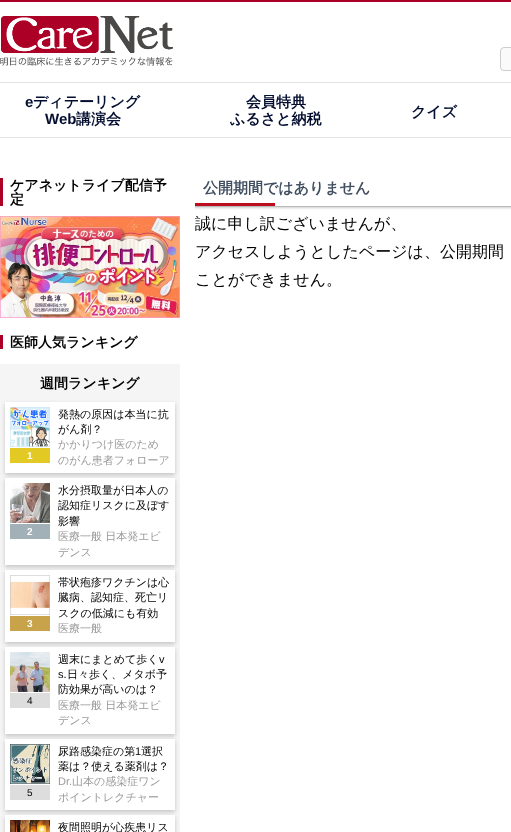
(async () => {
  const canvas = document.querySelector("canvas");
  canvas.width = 511;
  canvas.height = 832;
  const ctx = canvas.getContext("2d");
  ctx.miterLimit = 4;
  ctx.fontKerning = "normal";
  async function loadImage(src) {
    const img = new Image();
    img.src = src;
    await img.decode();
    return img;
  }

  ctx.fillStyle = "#ffffff";
  ctx.fillRect(0, 0, 511, 832);
  ctx.fillStyle = "#ad0026";
  ctx.fillRect(0, 0, 511, 2);
  ctx.drawImage(await loadImage("img/1.png"), 0, 16, 173, 50);
  ctx.fillStyle = "#fafafa";
  ctx.beginPath();
  ctx.roundRect(500.5, 47.5, 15, 23, 3.5);
  ctx.fill();
  ctx.strokeStyle = "#cdcdcd";
  ctx.stroke();
  for (const [x, y, w, h, color] of [
    [0, 82, 511, 1, "#e2e2e2"],
    [0, 137, 511, 1, "#e2e2e2"],
    [0, 178, 3, 28, "#ad0026"],
  ]) {
    ctx.fillStyle = color;
    ctx.fillRect(x, y, w, h);
  }
  ctx.drawImage(await loadImage("img/2.png"), 0, 216, 180, 102);
  ctx.fillRect(0, 335, 3, 14);
  ctx.fillStyle = "#f5f5f5";
  ctx.fillRect(0, 364, 180, 468);
  ctx.fillStyle = "rgba(0, 0, 0, 0.2)";
  ctx.filter = "blur(2px)";
  ctx.beginPath();
  ctx.rect(5, 404, 170, 71);
  ctx.fill();
  ctx.filter = "none";
  ctx.fillStyle = "#ffffff";
  ctx.fillRect(5, 402, 170, 71);
  ctx.drawImage(await loadImage("img/3.png"), 10, 407, 40, 40);
  ctx.fillStyle = "#e2c924";
  ctx.fillRect(10, 448, 40, 15);
  ctx.fillStyle = "rgba(0, 0, 0, 0.2)";
  ctx.filter = "blur(2px)";
  ctx.beginPath();
  ctx.rect(5, 480, 170, 87);
  ctx.fill();
  ctx.filter = "none";
  ctx.fillStyle = "#ffffff";
  ctx.fillRect(5, 478, 170, 87);
  ctx.drawImage(await loadImage("img/4.png"), 10, 483, 40, 40);
  ctx.fillStyle = "#a1b1b7";
  ctx.fillRect(10, 524, 40, 15);
  ctx.fillStyle = "rgba(0, 0, 0, 0.2)";
  ctx.filter = "blur(2px)";
  ctx.beginPath();
  ctx.rect(5, 572, 170, 72);
  ctx.fill();
  ctx.filter = "none";
  ctx.fillStyle = "#ffffff";
  ctx.fillRect(5, 570, 170, 72);
  ctx.drawImage(await loadImage("img/5.png"), 10, 575, 40, 40);
  ctx.fillStyle = "#c9a349";
  ctx.fillRect(10, 616, 40, 15);
  ctx.fillStyle = "rgba(0, 0, 0, 0.2)";
  ctx.filter = "blur(2px)";
  ctx.beginPath();
  ctx.rect(5, 649, 170, 87);
  ctx.fill();
  ctx.filter = "none";
  ctx.fillStyle = "#ffffff";
  ctx.fillRect(5, 647, 170, 87);
  ctx.drawImage(await loadImage("img/6.png"), 10, 652, 40, 40);
  ctx.fillStyle = "#dddddd";
  ctx.fillRect(10, 693, 40, 15);
  ctx.fillStyle = "rgba(0, 0, 0, 0.2)";
  ctx.filter = "blur(2px)";
  ctx.beginPath();
  ctx.rect(5, 741, 170, 71);
  ctx.fill();
  ctx.filter = "none";
  ctx.fillStyle = "#ffffff";
  ctx.fillRect(5, 739, 170, 71);
  ctx.drawImage(await loadImage("img/7.png"), 10, 744, 40, 40);
  ctx.fillStyle = "#dddddd";
  ctx.fillRect(10, 785, 40, 15);
  ctx.fillStyle = "rgba(0, 0, 0, 0.2)";
  ctx.filter = "blur(2px)";
  ctx.beginPath();
  ctx.rect(5, 817, 170, 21);
  ctx.fill();
  ctx.filter = "none";
  ctx.fillStyle = "#ffffff";
  ctx.fillRect(5, 815, 170, 17);
  ctx.drawImage(await loadImage("img/8.png"), 10, 820, 40, 12);
  ctx.drawImage(await loadImage("img/9.png"), 195, 203, 316, 7);
  ctx.font = "bold 15px Liberation Sans";
  ctx.fillStyle = "#030d30";
  ctx.fillText("e", 25, 107);
  ctx.font = "bold 15px WenQuanYi Zen Hei";
  ctx.fillText("ディテーリング", 33, 107);
  ctx.font = "bold 15px Liberation Sans";
  ctx.fillText("Web", 45, 124);
  ctx.font = "bold 15px WenQuanYi Zen Hei";
  for (const [text, x, y] of [
    ["講演会", 76, 124],
    ["会員特典", 246, 107],
    ["ふるさと納税", 230, 124],
    ["クイズ", 411, 117],
  ]) {
    ctx.fillText(text, x, y);
  }
  ctx.font = "bold 14px WenQuanYi Zen Hei";
  ctx.fillStyle = "#000000";
  for (const [text, x, y] of [
    ["ケアネットライブ配信予", 10, 190],
    ["定", 10, 204],
    ["医師人気ランキング", 10, 347],
    ["週間ランキング", 40, 388],
  ]) {
    ctx.fillText(text, x, y);
  }
  ctx.font = "bold 10px Liberation Sans";
  ctx.fillStyle = "#ffffff";
  ctx.fillText("1", 27, 459);
  ctx.font = "500 11px WenQuanYi Zen Hei";
  ctx.fillStyle = "#000000";
  ctx.fillText("発熱の原因は本当に抗", 58, 418);
  ctx.fillText("がん剤？", 58, 433);
  ctx.fillStyle = "#999999";
  ctx.fillText("かかりつけ医のため", 58, 448);
  ctx.fillText("のがん患者フォローア", 58, 464);
  ctx.font = "bold 10px Liberation Sans";
  ctx.fillStyle = "#ffffff";
  ctx.fillText("2", 27, 535);
  ctx.font = "500 11px WenQuanYi Zen Hei";
  ctx.fillStyle = "#000000";
  for (const [text, x, y] of [
    ["水分摂取量が日本人の", 58, 494],
    ["認知症リスクに及ぼす", 58, 509],
    ["影響", 58, 525],
  ]) {
    ctx.fillText(text, x, y);
  }
  ctx.fillStyle = "#999999";
  ctx.fillText("医療一般 日本発エビ", 58, 540);
  ctx.fillText("デンス", 58, 556);
  ctx.font = "bold 10px Liberation Sans";
  ctx.fillStyle = "#ffffff";
  ctx.fillText("3", 27, 627);
  ctx.font = "500 11px WenQuanYi Zen Hei";
  ctx.fillStyle = "#000000";
  for (const [text, x, y] of [
    ["帯状疱疹ワクチンは心", 58, 586],
    ["臓病、認知症、死亡リ", 58, 601],
    ["スクの低減にも有効", 58, 617],
  ]) {
    ctx.fillText(text, x, y);
  }
  ctx.fillStyle = "#999999";
  ctx.fillText("医療一般", 58, 632);
  ctx.font = "10px Liberation Sans";
  ctx.fillStyle = "#000000";
  ctx.fillText("4", 27, 704);
  ctx.font = "500 11px WenQuanYi Zen Hei";
  ctx.fillText("週末にまとめて歩く", 58, 663);
  ctx.font = "11px Liberation Sans";
  ctx.fillText("v", 159, 663);
  ctx.fillText("s.", 58, 678);
  ctx.font = "500 11px WenQuanYi Zen Hei";
  ctx.fillText("日々歩く、メタボ予", 67, 678);
  ctx.fillText("防効果が高いのは？", 58, 693);
  ctx.fillStyle = "#999999";
  ctx.fillText("医療一般 日本発エビ", 58, 709);
  ctx.fillText("デンス", 58, 724);
  ctx.font = "10px Liberation Sans";
  ctx.fillStyle = "#000000";
  ctx.fillText("5", 27, 796);
  ctx.font = "500 11px WenQuanYi Zen Hei";
  ctx.fillText("尿路感染症の第", 58, 755);
  ctx.font = "11px Liberation Sans";
  ctx.fillText("1", 135, 755);
  ctx.font = "500 11px WenQuanYi Zen Hei";
  ctx.fillText("選択", 141, 755);
  ctx.fillText("薬は？使える薬剤は？", 58, 770);
  ctx.font = "11px Liberation Sans";
  ctx.fillStyle = "#999999";
  ctx.fillText("Dr.", 58, 785);
  ctx.font = "500 11px WenQuanYi Zen Hei";
  ctx.fillText("山本の感染症ワン", 72, 785);
  ctx.fillText("ポイントレクチャー", 58, 801);
  ctx.fillStyle = "#000000";
  ctx.fillText("夜間照明が心疾患リス", 58, 831);
  ctx.font = "bold 15px WenQuanYi Zen Hei";
  ctx.fillStyle = "#404e60";
  ctx.fillText("公開期間ではありません", 203, 193);
  ctx.font = "500 16px WenQuanYi Zen Hei";
  ctx.fillStyle = "#000000";
  for (const [text, x, y] of [
    ["誠に申し訳ございませんが、", 195, 229],
    ["アクセスしようとしたページは、公開期間", 195, 257],
    ["ことができません。", 195, 285],
  ]) {
    ctx.fillText(text, x, y);
  }
})();
